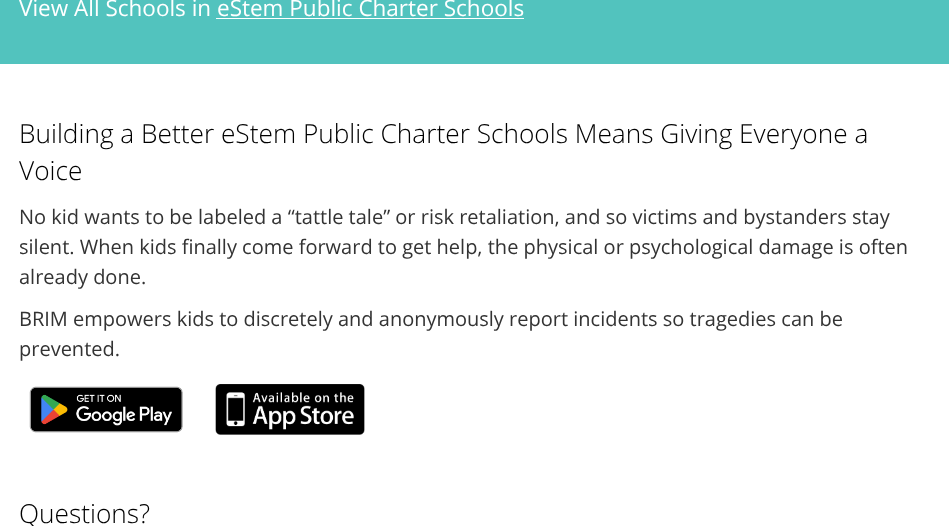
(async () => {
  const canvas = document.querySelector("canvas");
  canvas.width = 949;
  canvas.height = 526;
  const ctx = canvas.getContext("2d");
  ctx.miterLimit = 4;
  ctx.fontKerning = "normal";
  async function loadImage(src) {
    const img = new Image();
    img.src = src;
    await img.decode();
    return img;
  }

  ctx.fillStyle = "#ffffff";
  ctx.fillRect(0, 0, 949, 526);
  ctx.fillStyle = "#52c3be";
  ctx.fillRect(0, 0, 949, 64);
  ctx.fillStyle = "#ffffff";
  ctx.fillRect(216, 18, 308, 1);
  ctx.drawImage(await loadImage("img/1.png"), 29, 386, 154, 47);
  ctx.drawImage(await loadImage("img/2.png"), 215, 384, 150, 51);
  ctx.font = "22.5px Open Sans";
  ctx.fillText("View All Schools in eStem Public Charter Schools", 19, 16);
  ctx.font = "300 26.25px Open Sans";
  ctx.fillStyle = "#000000";
  ctx.fillText("Building a Better eStem Public Charter Schools Means Giving Everyone a", 19, 143);
  ctx.fillText("Voice", 19, 180);
  ctx.font = "20px Open Sans";
  ctx.fillStyle = "#333333";
  for (const [text, x, y] of [
    ["No kid wants to be labeled a “tattle tale” or risk retaliation, and so victims and bystanders stay", 19, 224],
    ["silent. When kids finally come forward to get help, the physical or psychological damage is often", 19, 254],
    ["already done.", 19, 284],
    ["BRIM empowers kids to discretely and anonymously report incidents so tragedies can be", 19, 326],
    ["prevented.", 19, 356],
  ]) {
    ctx.fillText(text, x, y);
  }
  ctx.font = "300 26.25px Open Sans";
  ctx.fillStyle = "#000000";
  ctx.fillText("Questions?", 19, 523);
})();
